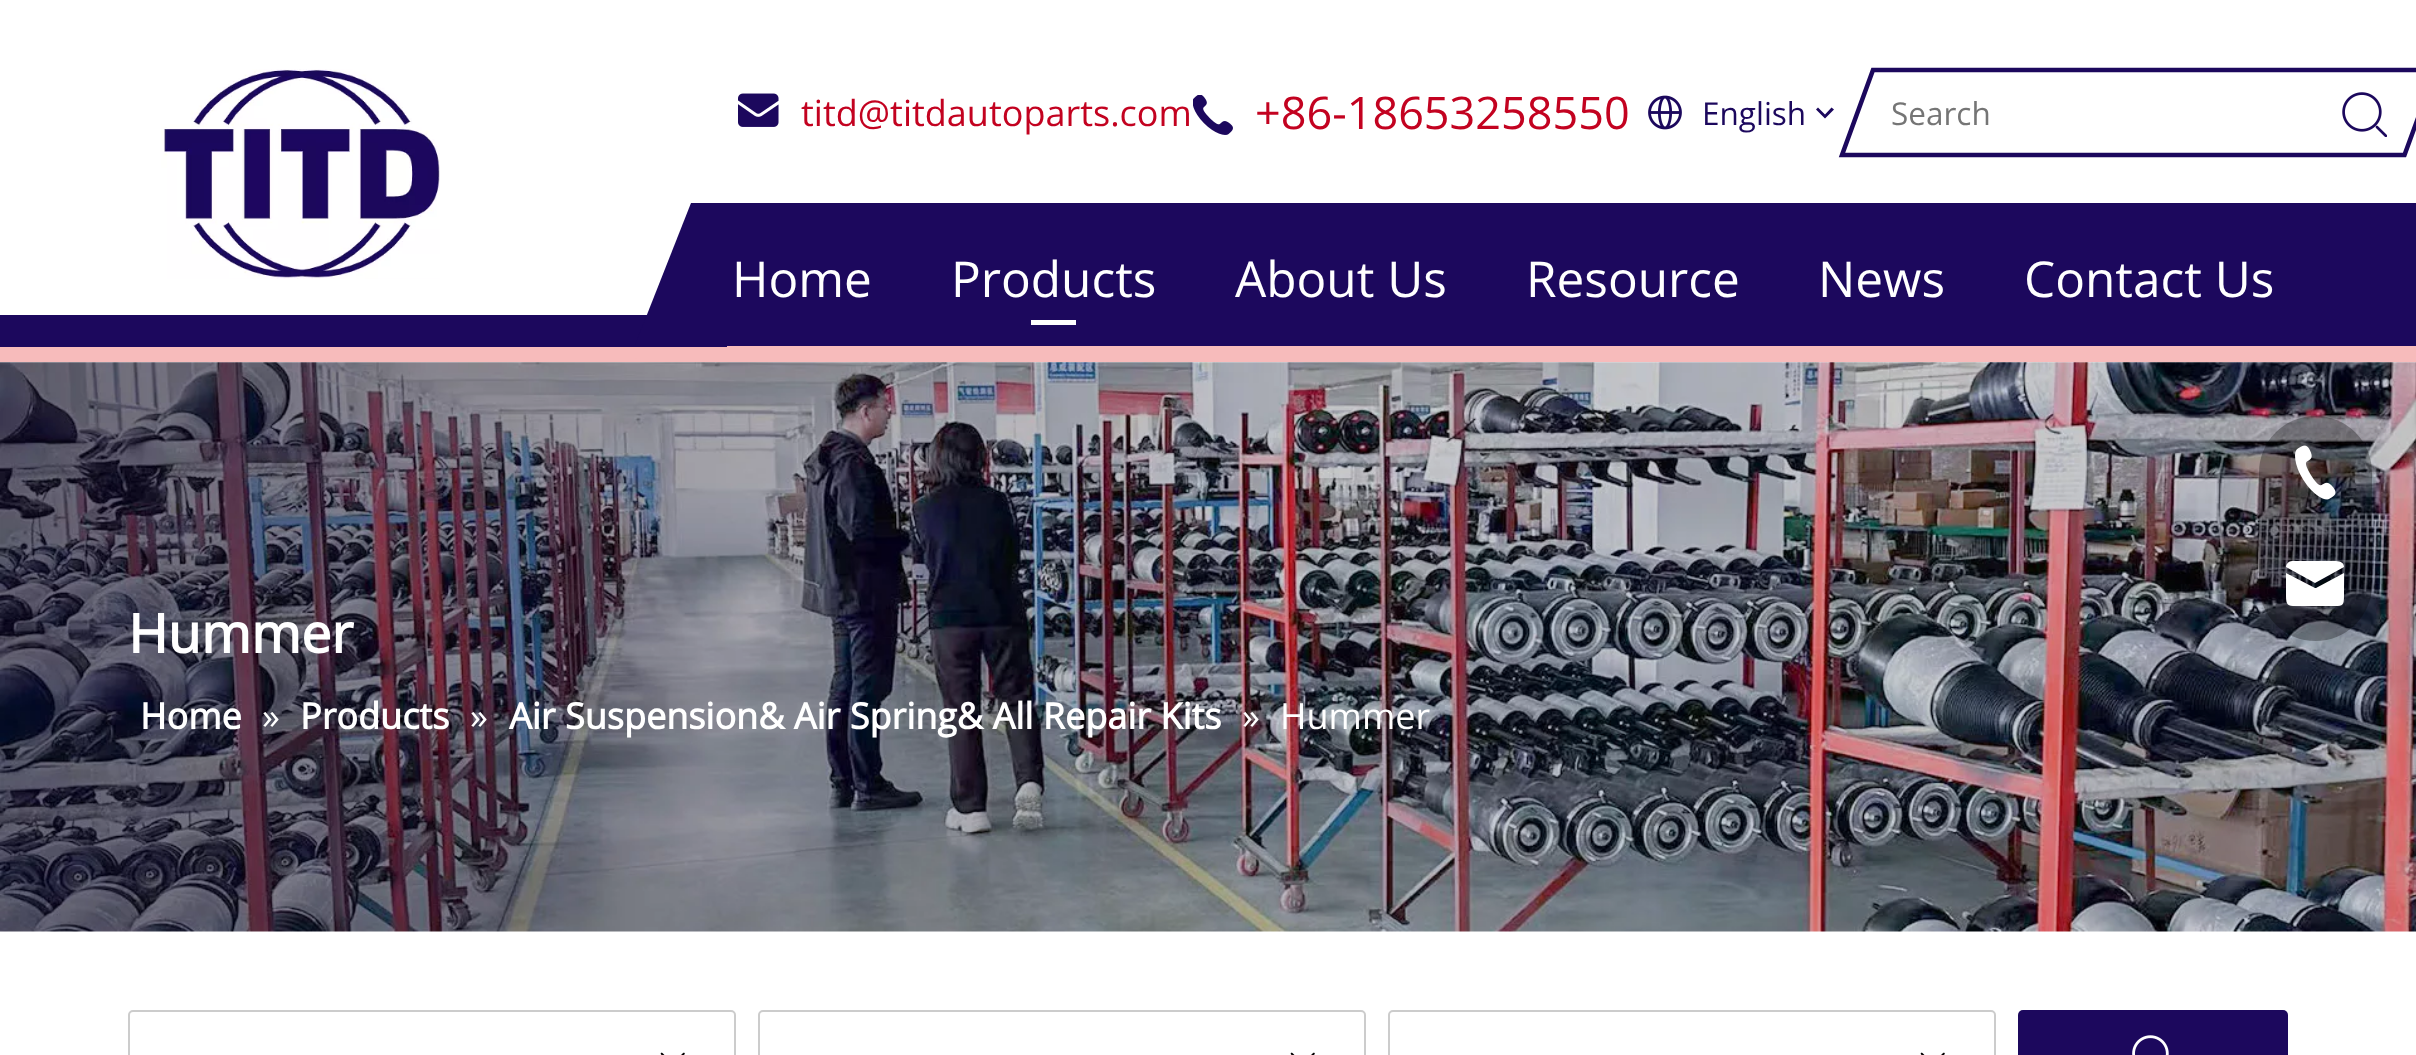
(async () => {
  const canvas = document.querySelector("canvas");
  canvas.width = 2416;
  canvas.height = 1055;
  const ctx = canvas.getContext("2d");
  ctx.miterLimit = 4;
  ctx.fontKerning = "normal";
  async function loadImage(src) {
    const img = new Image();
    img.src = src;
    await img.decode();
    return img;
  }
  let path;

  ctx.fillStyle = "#ffffff";
  ctx.fillRect(0, 0, 2416, 1055);
  ctx.drawImage(await loadImage("img/1.png"), 161, 69, 279, 210);
  ctx.drawImage(await loadImage("img/2.png"), 738, 93, 41, 34);
  ctx.drawImage(await loadImage("img/3.png"), 1193, 95, 40, 40);
  ctx.drawImage(await loadImage("img/4.png"), 1648, 95, 34, 35);
  ctx.fillStyle = "#1c085d";
  path = new Path2D("M1818 107.5L1825 114.5L1831.5 107.5L1834 109.5L1825 118.5L1816 109.5Z");
  ctx.fill(path);
  path = new Path2D("M1873 70H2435.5L2404.5 155H1842Z");
  ctx.strokeStyle = "#1c085d";
  ctx.lineWidth = 4.5;
  ctx.stroke(path);
  ctx.drawImage(await loadImage("img/5.png"), 2342, 92, 45, 45);
  ctx.fillStyle = "#f7bbbb";
  ctx.fillRect(0, 347, 641, 15);
  path = new Path2D("M691 218H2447V362H635V361Z");
  ctx.fill(path);
  ctx.fillStyle = "#1c085d";
  ctx.fillRect(0, 315, 727, 32);
  path = new Path2D("M635 345L691 203H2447V346H635Z");
  ctx.fill(path);
  ctx.fillStyle = "#ffffff";
  ctx.fillRect(1031, 320, 45, 5);
  ctx.drawImage(await loadImage("img/7.png"), 0, 362, 2416, 570);
  ctx.fillStyle = "rgba(0, 0, 0, 0.3)";
  ctx.beginPath();
  ctx.roundRect(2259, 416, 113, 225, 56.5);
  ctx.fill();
  ctx.drawImage(await loadImage("img/6.png"), 2295, 445, 41, 55);
  ctx.fillStyle = "#ffffff";
  path = new Path2D("M2292 561H2331C2335 561 2344 560 2344 567L2315 583L2286 567C2286 564 2289 561 2292 561ZM2286 573V596C2286 607 2289 606 2300 606H2331C2342 606 2344 607 2344 596V573L2316 588H2315Z");
  ctx.fill(path);
  ctx.beginPath();
  ctx.roundRect(129, 1011, 606, 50, 4);
  ctx.strokeStyle = "#cccccc";
  ctx.lineWidth = 2;
  ctx.stroke();
  ctx.drawImage(await loadImage("img/8.png"), 660, 1052, 25, 3);
  ctx.beginPath();
  ctx.roundRect(759, 1011, 606, 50, 4);
  ctx.stroke();
  ctx.drawImage(await loadImage("img/8.png"), 1290, 1052, 25, 3);
  ctx.beginPath();
  ctx.roundRect(1389, 1011, 606, 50, 4);
  ctx.stroke();
  ctx.drawImage(await loadImage("img/8.png"), 1920, 1052, 25, 3);
  ctx.fillStyle = "#1c085d";
  ctx.beginPath();
  ctx.roundRect(2018, 1010, 270, 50, 5);
  ctx.fill();
  ctx.drawImage(await loadImage("img/9.png"), 2132, 1035, 37, 20);
  ctx.font = "36px Open Sans";
  ctx.fillStyle = "#c30220";
  ctx.fillText("titd@titdautoparts.com", 801, 126);
  ctx.font = "45px Open Sans";
  ctx.fillText("+86-18653258550", 1255, 129);
  ctx.font = "31.5px Open Sans";
  ctx.fillStyle = "#1c085d";
  ctx.fillText("English", 1702, 125);
  ctx.fillStyle = "#757575";
  ctx.fillText("Search", 1891, 125);
  ctx.font = "49.5px Open Sans";
  ctx.fillStyle = "#ffffff";
  for (const [text, x, y] of [
    ["Home", 732, 297],
    ["Products", 951, 297],
    ["About Us", 1235, 297],
    ["Resource", 1526, 297],
    ["News", 1818, 297],
    ["Contact Us", 2024, 297],
  ]) {
    ctx.fillText(text, x, y);
  }
  ctx.font = "bold 54px Open Sans";
  ctx.fillText("Hummer", 128, 653);
  ctx.font = "bold 36px Open Sans";
  ctx.fillText("Home", 140, 729);
  ctx.font = "36px Open Sans";
  ctx.fillText("»", 262, 729);
  ctx.font = "bold 36px Open Sans";
  ctx.fillText("Products", 300, 729);
  ctx.font = "36px Open Sans";
  ctx.fillText("»", 470, 729);
  ctx.font = "bold 36px Open Sans";
  ctx.fillText("Air Suspension& Air Spring& All Repair Kits", 509, 729);
  ctx.font = "36px Open Sans";
  ctx.fillText("»", 1242, 729);
  ctx.fillText("Hummer", 1280, 729);
})();
